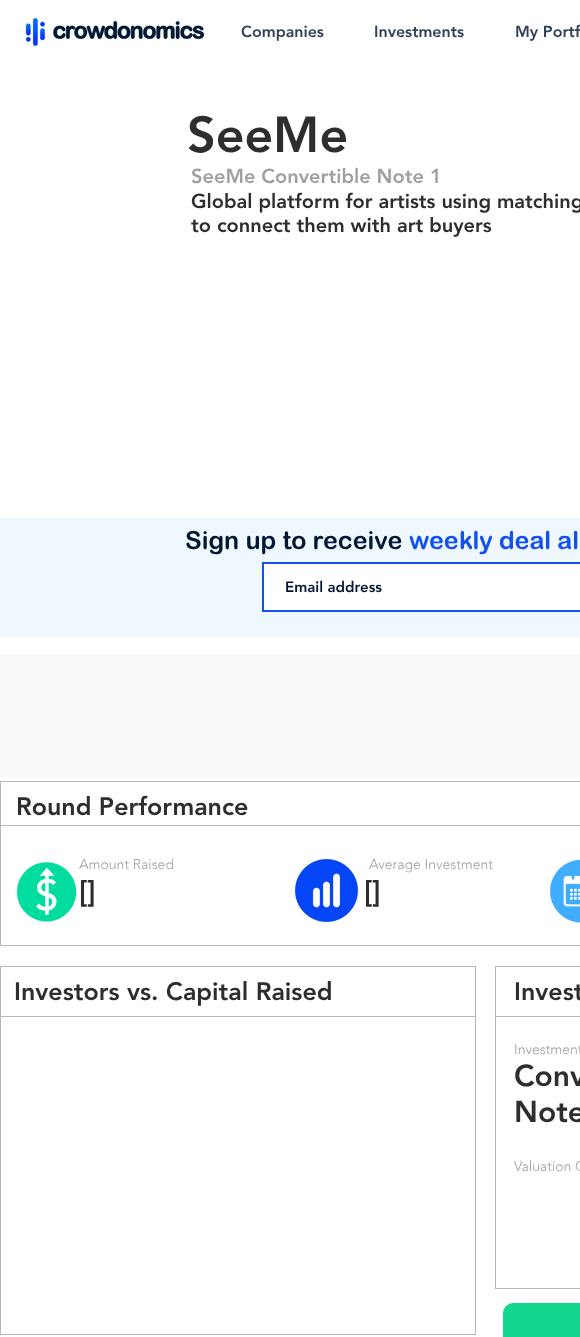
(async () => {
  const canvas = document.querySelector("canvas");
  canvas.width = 580;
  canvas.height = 1337;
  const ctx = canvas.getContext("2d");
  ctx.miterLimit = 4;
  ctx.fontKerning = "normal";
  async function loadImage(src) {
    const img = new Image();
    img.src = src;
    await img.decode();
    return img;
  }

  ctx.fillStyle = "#ffffff";
  ctx.fillRect(0, 0, 580, 1337);
  ctx.drawImage(await loadImage("img/1.png"), 25, 18, 180, 28);
  ctx.fillStyle = "#eff7ff";
  ctx.fillRect(0, 518, 580, 120);
  ctx.fillStyle = "#ffffff";
  ctx.beginPath();
  ctx.rect(263, 563, 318, 48);
  ctx.fill();
  ctx.strokeStyle = "#1251f1";
  ctx.lineWidth = 2;
  ctx.stroke();
  ctx.fillStyle = "#fafafa";
  ctx.fillRect(0, 654, 580, 124);
  ctx.strokeStyle = "#b3b9c1";
  ctx.lineWidth = 1;
  ctx.strokeRect(0.5, 781.5, 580, 49);
  ctx.fillStyle = "#ffffff";
  ctx.fillRect(1, 830, 579, 1);
  ctx.strokeRect(0.5, 825.5, 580, 120);
  ctx.drawImage(await loadImage("img/2.png"), 16, 862, 61, 60);
  ctx.drawImage(await loadImage("img/3.png"), 294, 858, 65, 65);
  ctx.drawImage(await loadImage("img/4.png"), 550, 859, 30, 64);
  ctx.strokeRect(0.5, 1015.5, 475, 319);
  ctx.fillRect(1, 1015, 474, 1);
  ctx.strokeRect(0.5, 966.5, 475, 50);
  ctx.strokeRect(495.5, 1015.5, 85, 273);
  ctx.fillRect(496, 1015, 84, 1);
  ctx.strokeRect(495.5, 966.5, 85, 50);
  ctx.fillStyle = "#13d68f";
  ctx.beginPath();
  ctx.roundRect(503, 1303, 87, 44, 10);
  ctx.fill();
  ctx.font = "900 16px 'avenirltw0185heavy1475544'";
  ctx.fillStyle = "#324158";
  for (const [text, x, y] of [
    ["Companies", 241, 37],
    ["Investments", 374, 37],
    ["My Portf", 515, 37],
  ]) {
    ctx.fillText(text, x, y);
  }
  ctx.font = "900 50px 'avenirltw0185heavy1475544'";
  ctx.fillStyle = "#2f2e2e";
  ctx.fillText("SeeMe", 187, 152);
  ctx.font = "900 20px 'avenirltw0185heavy1475544'";
  ctx.fillStyle = "#a0a09f";
  ctx.fillText("SeeMe Convertible Note 1", 191, 183);
  ctx.fillStyle = "#2f2e2e";
  ctx.fillText("Global platform for artists using matching", 191, 208);
  ctx.fillText("to connect them with art buyers", 191, 232);
  ctx.font = "bold 25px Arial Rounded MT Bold";
  ctx.fillStyle = "#001835";
  ctx.fillText("Sign up to receive", 185, 549);
  ctx.fillStyle = "#1251f1";
  ctx.fillText("weekly deal al", 409, 549);
  ctx.font = "900 15px 'avenirltw0185heavy1475544'";
  ctx.fillStyle = "#001835";
  ctx.fillText("Email address", 285, 592);
  ctx.font = "900 25px 'avenirltw0185heavy1475544'";
  ctx.fillStyle = "#2f2e2e";
  ctx.fillText("Round Performance", 16, 815);
  ctx.font = "300 14px 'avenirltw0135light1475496'";
  ctx.fillStyle = "#a0a09f";
  ctx.fillText("Amount Raised", 79, 869);
  ctx.fillText("Average Investment", 369, 869);
  ctx.font = "900 30px 'avenirltw0185heavy1475544'";
  ctx.fillStyle = "#2f2e2e";
  ctx.fillText("[]", 79, 902);
  ctx.fillText("[]", 364, 902);
  ctx.font = "900 25px 'avenirltw0185heavy1475544'";
  ctx.fillText("Investors vs. Capital Raised", 14, 1000);
  ctx.fillText("Invest", 514, 1000);
  ctx.font = "300 14px 'avenirltw0135light1475496'";
  ctx.fillStyle = "#a0a09f";
  ctx.fillText("Investment", 514, 1054);
  ctx.font = "900 30px 'avenirltw0185heavy1475544'";
  ctx.fillStyle = "#2f2e2e";
  ctx.fillText("Conv", 514, 1086);
  ctx.fillText("Note", 514, 1122);
  ctx.font = "300 14px 'avenirltw0135light1475496'";
  ctx.fillStyle = "#a0a09f";
  ctx.fillText("Valuation C", 514, 1171);
})();
